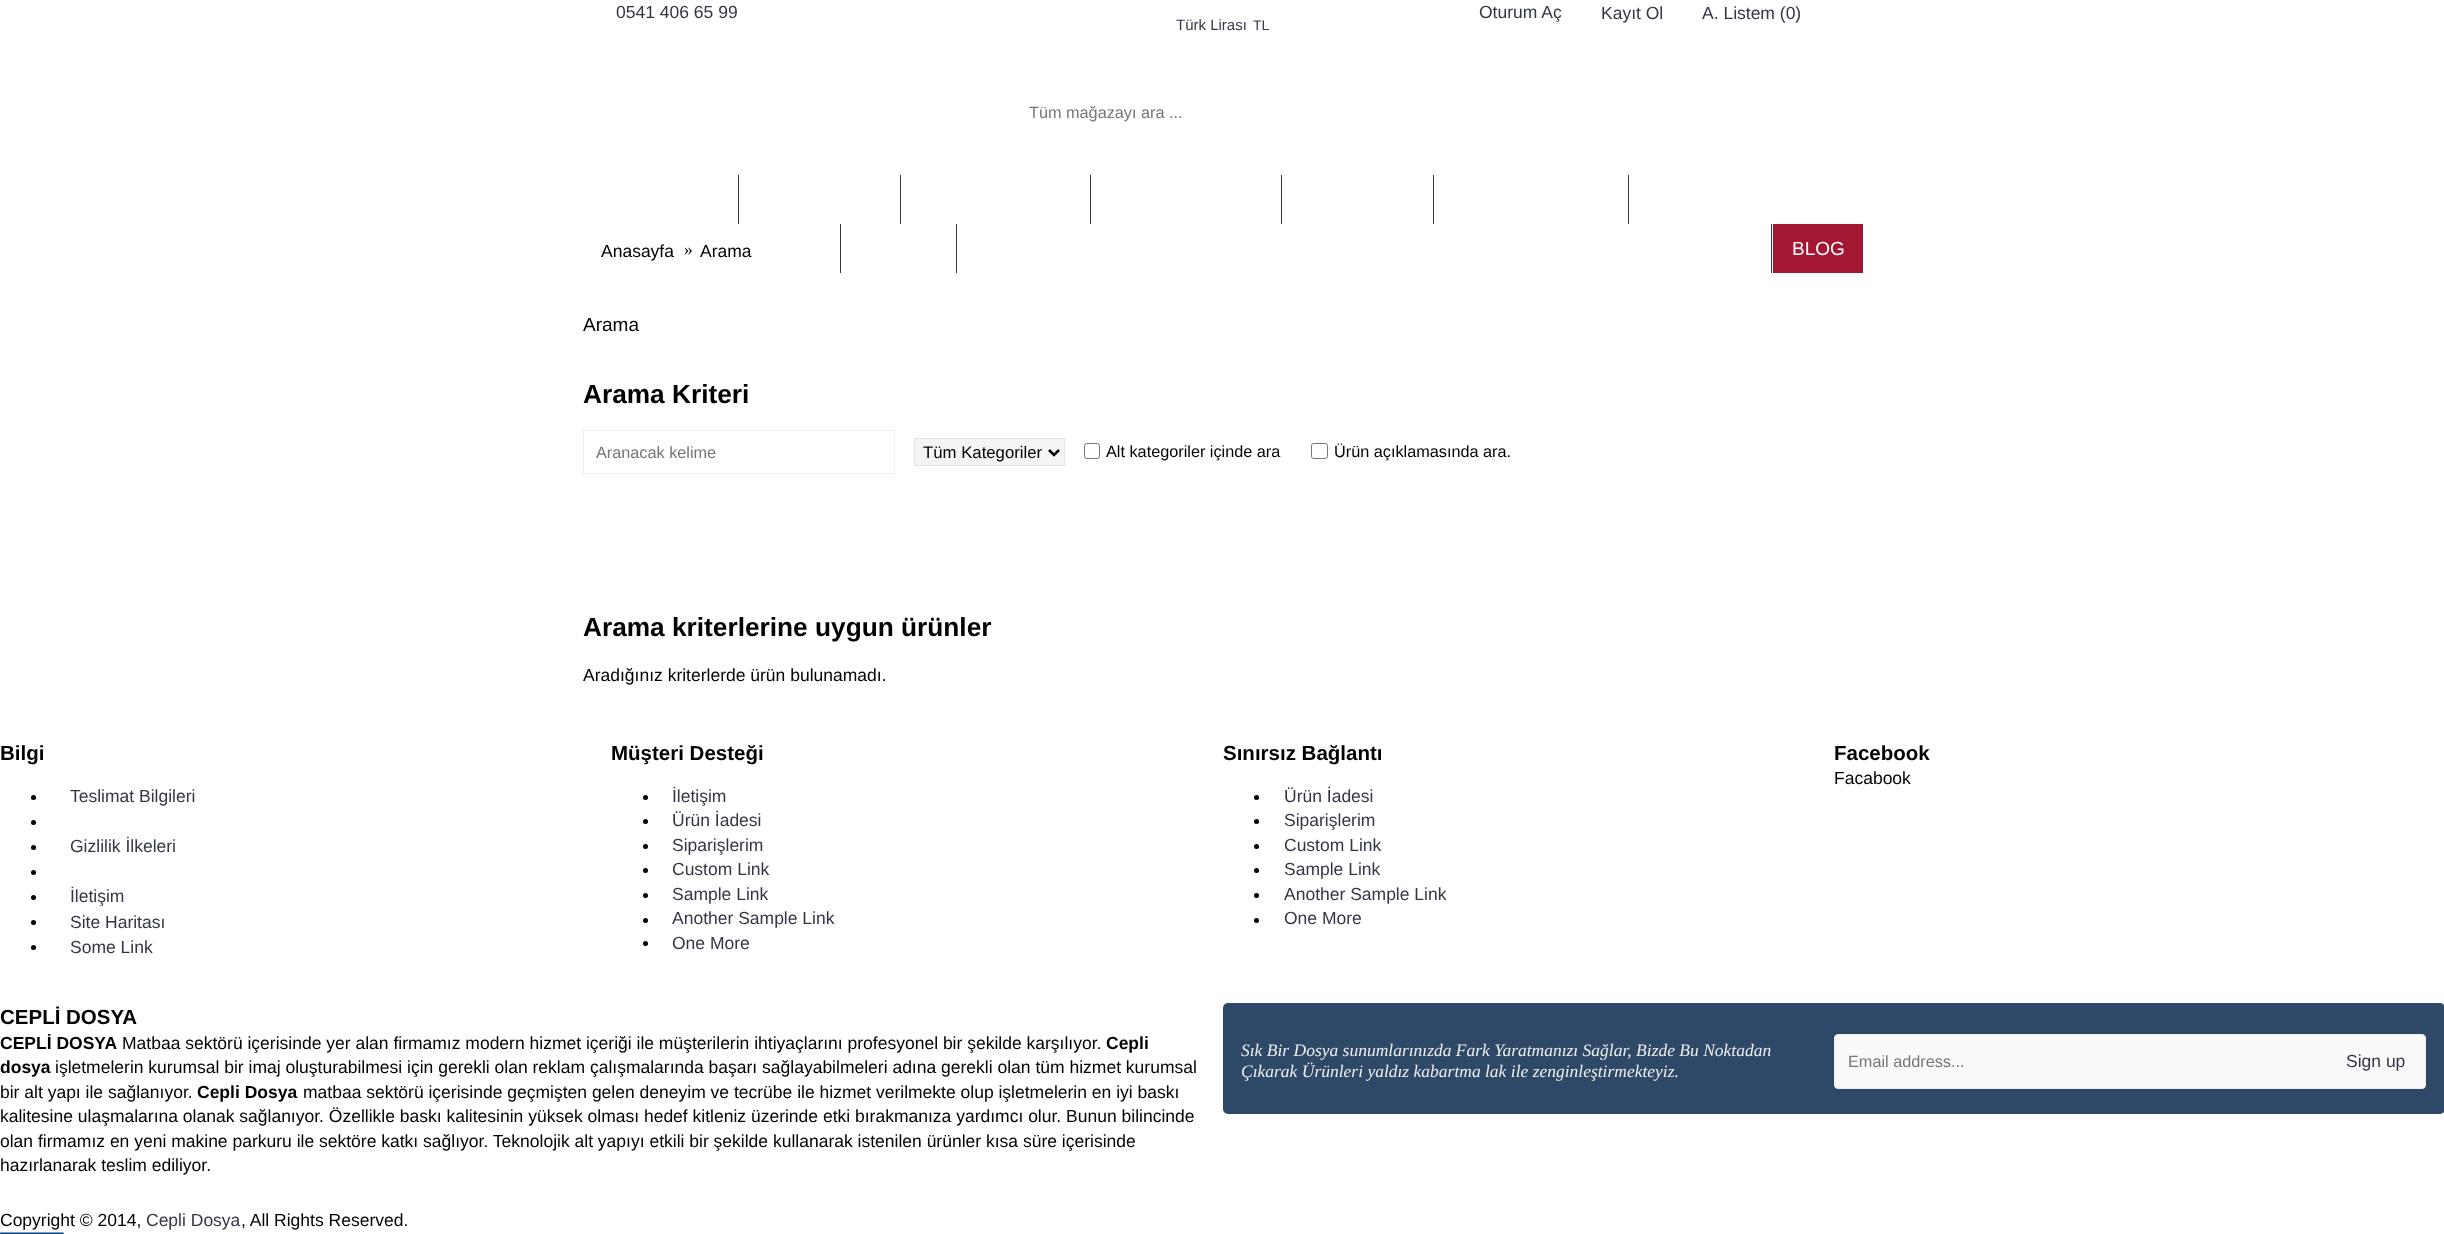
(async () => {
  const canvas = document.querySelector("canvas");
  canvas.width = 2444;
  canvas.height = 1234;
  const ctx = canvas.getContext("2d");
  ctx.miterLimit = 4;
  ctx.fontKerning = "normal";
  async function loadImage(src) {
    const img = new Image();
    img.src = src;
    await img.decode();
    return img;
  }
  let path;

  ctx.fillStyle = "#ffffff";
  ctx.fillRect(0, 0, 2444, 1234);
  for (const [x, y, w, h, color] of [
    [738, 175, 1, 49, "#333745"],
    [900, 175, 1, 49, "#333745"],
    [1090, 175, 1, 49, "#333745"],
    [1281, 175, 1, 49, "#333745"],
    [1433, 175, 1, 49, "#333745"],
    [1628, 175, 1, 49, "#333745"],
    [840, 224, 1, 49, "#333745"],
    [956, 224, 1, 49, "#333745"],
    [1773, 224, 90, 49, "#a41733"],
    [1771, 224, 1, 49, "#333745"],
  ]) {
    ctx.fillStyle = color;
    ctx.fillRect(x, y, w, h);
  }
  ctx.strokeStyle = "#eeeeee";
  ctx.strokeRect(583.5, 430.5, 311, 43);
  ctx.fillStyle = "#f4f4f4";
  ctx.beginPath();
  ctx.rect(914.5, 438.5, 150, 27);
  ctx.fill();
  ctx.strokeStyle = "#e4e4e4";
  ctx.stroke();
  path = new Path2D("M1049 450L1054 455L1059 450");
  ctx.strokeStyle = "#000000";
  ctx.lineWidth = 2.5;
  ctx.stroke(path);
  ctx.beginPath();
  ctx.roundRect(1084.5, 443.5, 15, 15, 2);
  ctx.strokeStyle = "#767676";
  ctx.lineWidth = 1;
  ctx.stroke();
  ctx.beginPath();
  ctx.roundRect(1311.5, 443.5, 16, 15, 2);
  ctx.stroke();
  ctx.fillStyle = "#000000";
  ctx.beginPath();
  ctx.arc(33.5, 797.5, 2.5, 0, Math.PI * 2);
  ctx.fill();
  ctx.beginPath();
  ctx.arc(33.5, 822.5, 2.5, 0, Math.PI * 2);
  ctx.fill();
  ctx.beginPath();
  ctx.arc(33.5, 847.5, 2.5, 0, Math.PI * 2);
  ctx.fill();
  ctx.beginPath();
  ctx.arc(33.5, 872.5, 2.5, 0, Math.PI * 2);
  ctx.fill();
  ctx.beginPath();
  ctx.arc(33.5, 897.5, 2.5, 0, Math.PI * 2);
  ctx.fill();
  ctx.beginPath();
  ctx.arc(33.5, 922.5, 2.5, 0, Math.PI * 2);
  ctx.fill();
  ctx.beginPath();
  ctx.arc(33.5, 947.5, 2.5, 0, Math.PI * 2);
  ctx.fill();
  ctx.beginPath();
  ctx.arc(645.5, 797.5, 2.5, 0, Math.PI * 2);
  ctx.fill();
  ctx.beginPath();
  ctx.arc(645.5, 821.5, 2.5, 0, Math.PI * 2);
  ctx.fill();
  ctx.beginPath();
  ctx.arc(645.5, 846.5, 2.5, 0, Math.PI * 2);
  ctx.fill();
  ctx.beginPath();
  ctx.arc(645.5, 870.5, 2.5, 0, Math.PI * 2);
  ctx.fill();
  ctx.beginPath();
  ctx.arc(645.5, 895.5, 2.5, 0, Math.PI * 2);
  ctx.fill();
  ctx.beginPath();
  ctx.arc(645.5, 920.5, 2.5, 0, Math.PI * 2);
  ctx.fill();
  ctx.beginPath();
  ctx.arc(645.5, 943.5, 2.5, 0, Math.PI * 2);
  ctx.fill();
  ctx.beginPath();
  ctx.arc(1256.5, 797.5, 2.5, 0, Math.PI * 2);
  ctx.fill();
  ctx.beginPath();
  ctx.arc(1256.5, 821.5, 2.5, 0, Math.PI * 2);
  ctx.fill();
  ctx.beginPath();
  ctx.arc(1256.5, 846.5, 2.5, 0, Math.PI * 2);
  ctx.fill();
  ctx.beginPath();
  ctx.arc(1256.5, 870.5, 2.5, 0, Math.PI * 2);
  ctx.fill();
  ctx.beginPath();
  ctx.arc(1256.5, 895.5, 2.5, 0, Math.PI * 2);
  ctx.fill();
  ctx.beginPath();
  ctx.arc(1256.5, 920.5, 2.5, 0, Math.PI * 2);
  ctx.fill();
  ctx.fillStyle = "#2e4867";
  ctx.beginPath();
  ctx.roundRect(1223, 1003, 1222, 111, 5);
  ctx.fill();
  ctx.fillStyle = "#fafafa";
  ctx.beginPath();
  ctx.roundRect(1834.5, 1034.5, 591, 54, 3.5);
  ctx.fill();
  ctx.strokeStyle = "#eeeeee";
  ctx.stroke();
  ctx.drawImage(await loadImage("img/1.png"), 0, 1232, 64, 2);
  ctx.font = "17.5px Liberation Sans";
  ctx.fillStyle = "#333745";
  for (const [text, x, y] of [
    ["0541 406 65 99", 616, 18],
    ["Oturum Aç", 1479, 18],
    ["Kayıt Ol", 1601, 19],
    ["A. Listem (0)", 1702, 19],
  ]) {
    ctx.fillText(text, x, y);
  }
  ctx.font = "15px Liberation Sans";
  ctx.fillText("Türk Lirası", 1176, 30);
  ctx.font = "14px Liberation Sans";
  ctx.fillText("TL", 1253, 30);
  ctx.font = "16.25px Liberation Sans";
  ctx.fillStyle = "#757575";
  ctx.fillText("Tüm mağazayı ara ...", 1029, 118);
  ctx.font = "19px Liberation Sans";
  ctx.fillStyle = "#ffffff";
  ctx.fillText("BLOG", 1792, 255);
  ctx.font = "17.5px Liberation Sans";
  ctx.fillStyle = "#000000";
  ctx.fillText("Anasayfa", 601, 257);
  ctx.font = "17.5px Liberation Serif";
  ctx.fillText("»", 684, 255);
  ctx.font = "17.5px Liberation Sans";
  ctx.fillText("Arama", 700, 257);
  ctx.font = "19px Liberation Sans";
  ctx.fillText("Arama", 583, 331);
  ctx.font = "bold 26.25px Liberation Sans";
  ctx.fillText("Arama Kriteri", 583, 403);
  ctx.font = "16.25px Liberation Sans";
  ctx.fillStyle = "#757575";
  ctx.fillText("Aranacak kelime", 596, 458);
  ctx.font = "16.75px Liberation Sans";
  ctx.fillStyle = "#000000";
  ctx.fillText("Tüm Kategoriler", 923, 458);
  ctx.font = "16.25px Liberation Sans";
  ctx.fillText("Alt kategoriler içinde ara", 1106, 457);
  ctx.fillText("Ürün açıklamasında ara.", 1334, 457);
  ctx.font = "bold 26.25px Liberation Sans";
  ctx.fillText("Arama kriterlerine uygun ürünler", 583, 636);
  ctx.font = "17.5px Liberation Sans";
  ctx.fillText("Aradığınız kriterlerde ürün bulunamadı.", 583, 681);
  ctx.font = "bold 20.5px Liberation Sans";
  ctx.fillText("Bilgi", 0, 760);
  ctx.font = "17.5px Liberation Sans";
  ctx.fillStyle = "#333745";
  for (const [text, x, y] of [
    ["Teslimat Bilgileri", 70, 802],
    ["Gizlilik İlkeleri", 70, 852],
    ["İletişim", 70, 902],
    ["Site Haritası", 70, 928],
    ["Some Link", 70, 953],
  ]) {
    ctx.fillText(text, x, y);
  }
  ctx.font = "bold 20.5px Liberation Sans";
  ctx.fillStyle = "#000000";
  ctx.fillText("Müşteri Desteği", 611, 760);
  ctx.font = "17.5px Liberation Sans";
  ctx.fillStyle = "#333745";
  for (const [text, x, y] of [
    ["İletişim", 672, 802],
    ["Ürün İadesi", 672, 826],
    ["Siparişlerim", 672, 851],
    ["Custom Link", 672, 875],
    ["Sample Link", 672, 900],
    ["Another Sample Link", 672, 924],
    ["One More", 672, 949],
  ]) {
    ctx.fillText(text, x, y);
  }
  ctx.font = "bold 20.5px Liberation Sans";
  ctx.fillStyle = "#000000";
  ctx.fillText("Sınırsız Bağlantı", 1223, 760);
  ctx.font = "17.5px Liberation Sans";
  ctx.fillStyle = "#333745";
  for (const [text, x, y] of [
    ["Ürün İadesi", 1284, 802],
    ["Siparişlerim", 1284, 826],
    ["Custom Link", 1284, 851],
    ["Sample Link", 1284, 875],
    ["Another Sample Link", 1284, 900],
    ["One More", 1284, 924],
  ]) {
    ctx.fillText(text, x, y);
  }
  ctx.font = "bold 20.5px Liberation Sans";
  ctx.fillStyle = "#000000";
  ctx.fillText("Facebook", 1834, 760);
  ctx.font = "17.5px Liberation Sans";
  ctx.fillText("Facabook", 1834, 784);
  ctx.font = "bold 20.5px Liberation Sans";
  ctx.fillText("CEPLİ DOSYA", 0, 1024);
  ctx.font = "bold 17.5px Liberation Sans";
  ctx.fillText("CEPLİ DOSYA", 0, 1049);
  ctx.font = "17.5px Liberation Sans";
  ctx.fillText("Matbaa sektörü içerisinde yer alan firmamız modern hizmet içeriği ile müşterilerin ihtiyaçlarını profesyonel bir şekilde karşılıyor.", 122, 1049);
  ctx.font = "bold 17.5px Liberation Sans";
  ctx.fillText("Cepli", 1106, 1049);
  ctx.fillText("dosya", 0, 1073);
  ctx.font = "17.5px Liberation Sans";
  ctx.fillText("işletmelerin kurumsal bir imaj oluşturabilmesi için gerekli olan reklam çalışmalarında başarı sağlayabilmeleri adına gerekli olan tüm hizmet kurumsal", 55, 1073);
  ctx.fillText("bir alt yapı ile sağlanıyor.", 0, 1098);
  ctx.font = "bold 17.5px Liberation Sans";
  ctx.fillText("Cepli Dosya", 197, 1098);
  ctx.font = "17.5px Liberation Sans";
  for (const [text, x, y] of [
    ["matbaa sektörü içerisinde geçmişten gelen deneyim ve tecrübe ile hizmet verilmekte olup işletmelerin en iyi baskı", 303, 1098],
    ["kalitesine ulaşmalarına olanak sağlanıyor. Özellikle baskı kalitesinin yüksek olması hedef kitleniz üzerinde etki bırakmanıza yardımcı olur. Bunun bilincinde", 0, 1122],
    ["olan firmamız en yeni makine parkuru ile sektöre katkı sağlıyor. Teknolojik alt yapıyı etkili bir şekilde kullanarak istenilen ürünler kısa süre içerisinde", 0, 1147],
    ["hazırlanarak teslim ediliyor.", 0, 1171],
  ]) {
    ctx.fillText(text, x, y);
  }
  ctx.font = "italic 17.5px Liberation Serif";
  ctx.fillStyle = "#eeeeee";
  ctx.fillText("Sık Bir Dosya sunumlarınızda Fark Yaratmanızı Sağlar, Bizde Bu Noktadan", 1241, 1056);
  ctx.fillText("Çıkarak Ürünleri yaldız kabartma lak ile zenginleştirmekteyiz.", 1241, 1077);
  ctx.font = "16.25px Liberation Sans";
  ctx.fillStyle = "#757575";
  ctx.fillText("Email address...", 1848, 1067);
  ctx.font = "17.5px Liberation Sans";
  ctx.fillStyle = "#333745";
  ctx.fillText("Sign up", 2346, 1067);
  ctx.fillStyle = "#000000";
  ctx.fillText("Copyright © 2014,", 0, 1226);
  ctx.fillStyle = "#333745";
  ctx.fillText("Cepli Dosya", 146, 1226);
  ctx.fillStyle = "#000000";
  ctx.fillText(", All Rights Reserved.", 241, 1226);
})();
